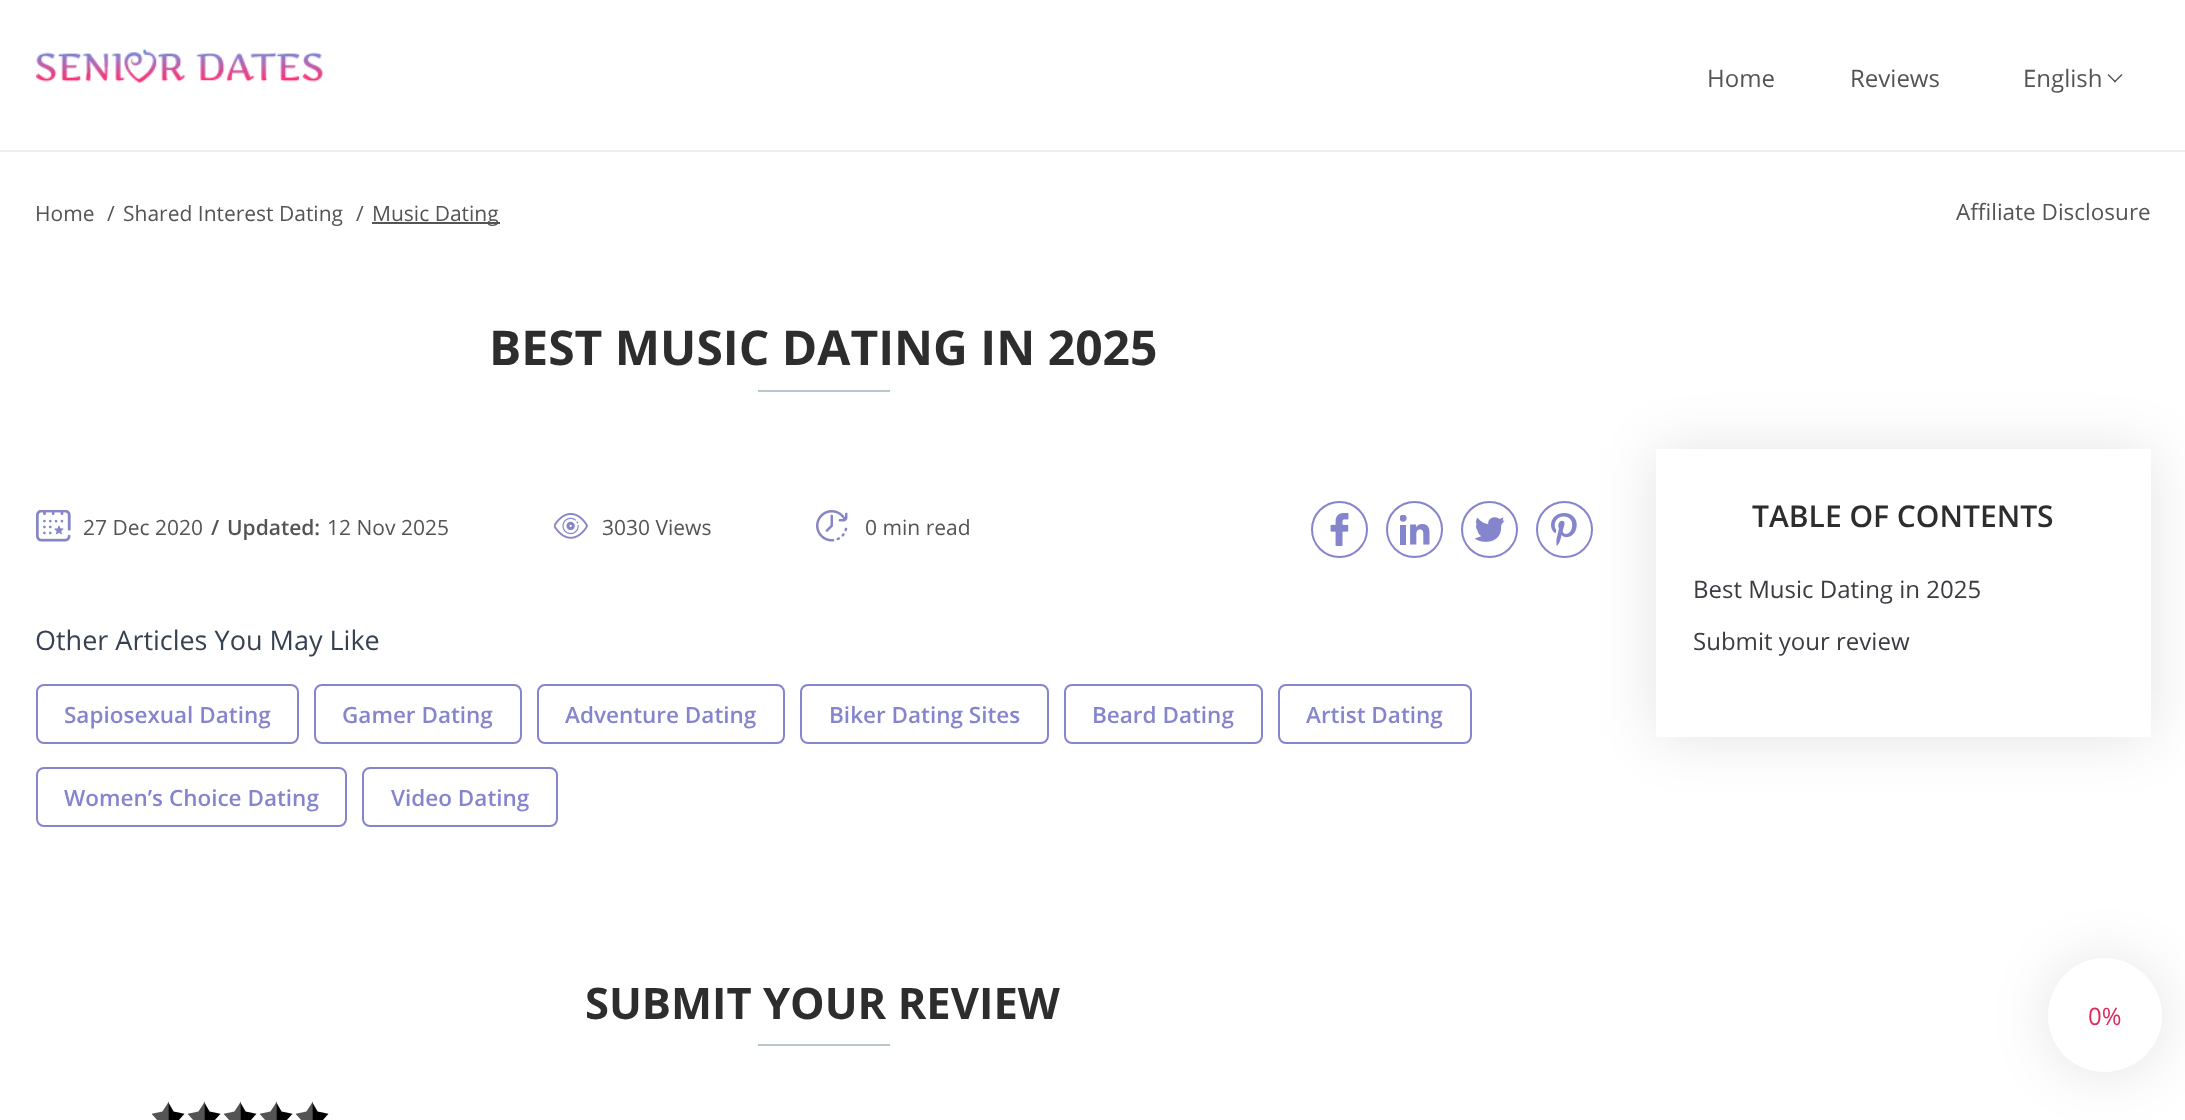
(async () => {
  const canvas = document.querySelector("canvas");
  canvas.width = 2185;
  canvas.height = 1120;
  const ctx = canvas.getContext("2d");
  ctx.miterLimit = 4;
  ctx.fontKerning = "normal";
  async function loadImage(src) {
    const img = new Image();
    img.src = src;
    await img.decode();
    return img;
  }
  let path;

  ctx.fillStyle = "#ffffff";
  ctx.fillRect(0, 0, 2185, 1120);
  ctx.fillStyle = "#eaf0f3";
  ctx.fillRect(0, 150, 2185, 2);
  ctx.drawImage(await loadImage("img/1.png"), 36, 49, 288, 34);
  ctx.fillStyle = "#545454";
  path = new Path2D("M2121.5 74L2122.5 75L2115 82.5L2114 81.5Z");
  ctx.fill(path);
  path = new Path2D("M2108.5 74L2116 81.5L2115 82.5L2107.5 75Z");
  ctx.fill(path);
  ctx.fillRect(372, 222, 128, 2);
  ctx.fillStyle = "#b9c6cc";
  ctx.fillRect(758, 390, 132, 2);
  ctx.drawImage(await loadImage("img/2.png"), 36, 510, 35, 32);
  ctx.drawImage(await loadImage("img/3.png"), 554, 513, 34, 26);
  ctx.drawImage(await loadImage("img/4.png"), 816, 510, 32, 32);
  ctx.beginPath();
  ctx.arc(1339.5, 529.5, 27.5, 0, Math.PI * 2);
  ctx.strokeStyle = "#8585cd";
  ctx.lineWidth = 2;
  ctx.stroke();
  ctx.drawImage(await loadImage("img/5.png"), 1330, 513, 19, 33);
  ctx.beginPath();
  ctx.arc(1414.5, 529.5, 27.5, 0, Math.PI * 2);
  ctx.stroke();
  ctx.drawImage(await loadImage("img/6.png"), 1400, 515, 30, 30);
  ctx.beginPath();
  ctx.arc(1489.5, 529.5, 27.5, 0, Math.PI * 2);
  ctx.stroke();
  ctx.drawImage(await loadImage("img/7.png"), 1475, 517, 30, 25);
  ctx.beginPath();
  ctx.arc(1564.5, 529.5, 27.5, 0, Math.PI * 2);
  ctx.stroke();
  ctx.drawImage(await loadImage("img/8.png"), 1551, 513, 26, 33);
  ctx.beginPath();
  ctx.roundRect(37, 685, 261, 58, 7);
  ctx.stroke();
  ctx.beginPath();
  ctx.roundRect(315, 685, 206, 58, 7);
  ctx.stroke();
  ctx.beginPath();
  ctx.roundRect(538, 685, 246, 58, 7);
  ctx.stroke();
  ctx.beginPath();
  ctx.roundRect(801, 685, 247, 58, 7);
  ctx.stroke();
  ctx.beginPath();
  ctx.roundRect(1065, 685, 197, 58, 7);
  ctx.stroke();
  ctx.beginPath();
  ctx.roundRect(1279, 685, 192, 58, 7);
  ctx.stroke();
  ctx.beginPath();
  ctx.roundRect(37, 768, 309, 58, 7);
  ctx.stroke();
  ctx.beginPath();
  ctx.roundRect(363, 768, 194, 58, 7);
  ctx.stroke();
  ctx.fillRect(758, 1044, 132, 2);
  ctx.drawImage(await loadImage("img/9.png"), 152, 1101, 33, 19);
  ctx.drawImage(await loadImage("img/9.png"), 188, 1101, 33, 19);
  ctx.drawImage(await loadImage("img/9.png"), 224, 1101, 33, 19);
  ctx.drawImage(await loadImage("img/9.png"), 260, 1101, 33, 19);
  ctx.drawImage(await loadImage("img/9.png"), 296, 1101, 33, 19);
  ctx.fillStyle = "rgba(2, 7, 24, 0.11)";
  ctx.filter = "blur(28.5px)";
  ctx.beginPath();
  ctx.rect(1656, 450, 495, 288);
  ctx.fill();
  ctx.filter = "none";
  ctx.fillStyle = "#ffffff";
  ctx.fillRect(1656, 449, 495, 288);
  ctx.fillStyle = "rgba(2, 7, 24, 0.11)";
  ctx.filter = "blur(28.5px)";
  ctx.beginPath();
  ctx.roundRect(2048, 960, 114, 114, 57);
  ctx.fill();
  ctx.filter = "none";
  ctx.fillStyle = "#ffffff";
  path = new Path2D("M2048 1016C2048 984 2073 958 2104 958C2136 958 2162 984 2162 1016C2162 1047 2136 1072 2104 1072C2073 1072 2048 1047 2048 1016Z");
  ctx.fill(path);
  ctx.font = "24px Open Sans";
  ctx.fillStyle = "#545454";
  for (const [text, x, y] of [
    ["Home", 1707, 87],
    ["Reviews", 1850, 87],
    ["English", 2023, 87],
  ]) {
    ctx.fillText(text, x, y);
  }
  ctx.font = "21px Open Sans";
  for (const [text, x, y] of [
    ["Home", 35, 221],
    ["/", 107, 221],
    ["Shared Interest Dating", 123, 221],
    ["/", 356, 221],
    ["Music Dating", 372, 221],
  ]) {
    ctx.fillText(text, x, y);
  }
  ctx.font = "22.5px Open Sans";
  ctx.fillText("Affiliate Disclosure", 1956, 220);
  ctx.font = "bold 48px Open Sans";
  ctx.fillStyle = "#2e2d2d";
  ctx.fillText("BEST MUSIC DATING IN 2025", 489, 365);
  ctx.font = "21px Open Sans";
  ctx.fillStyle = "#545454";
  ctx.fillText("27 Dec 2020", 83, 535);
  ctx.font = "600 21px Open Sans";
  ctx.fillText("/", 211, 535);
  ctx.fillText("Updated:", 227, 535);
  ctx.font = "21px Open Sans";
  for (const [text, x, y] of [
    ["12 Nov 2025", 327, 535],
    ["3030 Views", 602, 535],
    ["0 min read", 865, 535],
  ]) {
    ctx.fillText(text, x, y);
  }
  ctx.font = "27px Open Sans";
  ctx.fillStyle = "#374251";
  ctx.fillText("Other Articles You May Like", 35, 650);
  ctx.font = "600 22.5px Open Sans";
  ctx.fillStyle = "#8585cd";
  for (const [text, x, y] of [
    ["Sapiosexual Dating", 64, 723],
    ["Gamer Dating", 342, 723],
    ["Adventure Dating", 565, 723],
    ["Biker Dating Sites", 829, 723],
    ["Beard Dating", 1092, 723],
    ["Artist Dating", 1306, 723],
    ["Women’s Choice Dating", 64, 806],
    ["Video Dating", 391, 806],
  ]) {
    ctx.fillText(text, x, y);
  }
  ctx.font = "bold 43.5px Open Sans";
  ctx.fillStyle = "#2e2d2d";
  ctx.fillText("SUBMIT YOUR REVIEW", 585, 1019);
  ctx.font = "600 30px Open Sans";
  ctx.fillText("TABLE OF CONTENTS", 1752, 527);
  ctx.font = "24px Open Sans";
  ctx.fillStyle = "#3d3b41";
  ctx.fillText("Best Music Dating in 2025", 1693, 598);
  ctx.fillText("Submit your review", 1693, 650);
  ctx.fillStyle = "#dc2a58";
  ctx.fillText("0%", 2088, 1025);
})();
